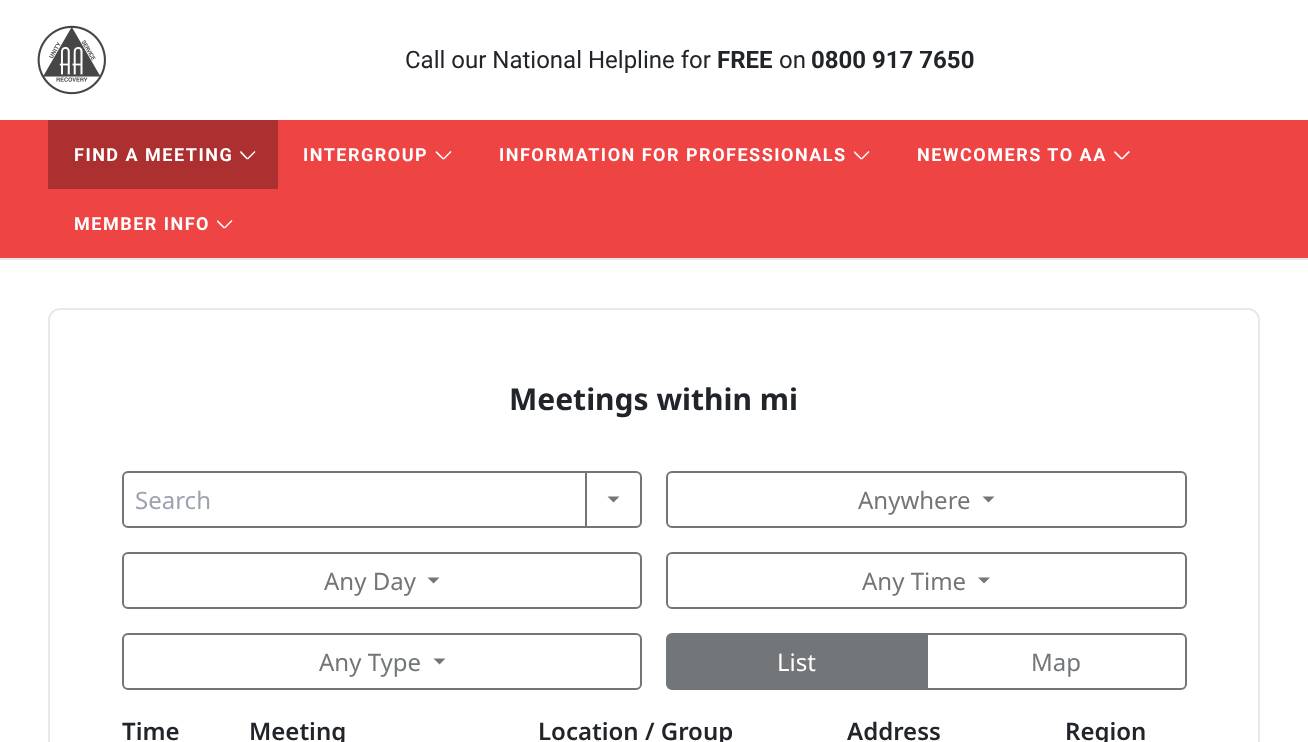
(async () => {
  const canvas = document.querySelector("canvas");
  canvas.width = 1308;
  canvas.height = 742;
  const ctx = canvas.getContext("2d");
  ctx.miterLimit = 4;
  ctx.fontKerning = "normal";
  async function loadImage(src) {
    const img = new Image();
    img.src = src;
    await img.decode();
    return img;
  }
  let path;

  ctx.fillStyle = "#ffffff";
  ctx.fillRect(0, 0, 1308, 742);
  ctx.fillStyle = "#e5e7eb";
  ctx.fillRect(0, 258, 1308, 2);
  ctx.drawImage(await loadImage("img/1.png"), 37, 25, 69, 70);
  ctx.fillStyle = "#ef4444";
  ctx.fillRect(0, 120, 1308, 138);
  ctx.fillStyle = "#ad3030";
  ctx.fillRect(48, 120, 230, 69);
  ctx.fillStyle = "#ffffff";
  path = new Path2D("M241.5 151.5L248 158.5L247 159.5C246 158.5 240 153 240 152C240 151.5 241 151 241.5 151.5Z");
  ctx.fill(path);
  path = new Path2D("M247 158.5L254.5 151L255.5 152L248 159.5Z");
  ctx.fill(path);
  path = new Path2D("M437 151.5L444 158.5L443 159.5C442 158.5 435.5 153 435.5 152C436 151.5 436.5 151 437 151.5Z");
  ctx.fill(path);
  path = new Path2D("M443 158.5L450.5 151L451.5 152L444 159.5Z");
  ctx.fill(path);
  path = new Path2D("M855 151.5L862 158.5L861 159.5C860 158.5 853.5 153 854 152C854 151.5 854.5 151 855 151.5Z");
  ctx.fill(path);
  path = new Path2D("M861 158.5L868.5 151L869.5 152L862 159.5Z");
  ctx.fill(path);
  path = new Path2D("M1115.5 151.5L1122.5 158.5L1121 159.5C1120.5 158.5 1114 153 1114 152C1114.5 151.5 1115 151 1115.5 151.5Z");
  ctx.fill(path);
  path = new Path2D("M1121.5 158.5L1128.5 151L1130 152L1122.5 159.5Z");
  ctx.fill(path);
  path = new Path2D("M218 220.5L225 227.5L224 228.5C223 227.5 216.5 222 217 221C217 220.5 217.5 220 218 220.5Z");
  ctx.fill(path);
  path = new Path2D("M224 227.5L231.5 220L232.5 221L225 228.5Z");
  ctx.fill(path);
  ctx.beginPath();
  ctx.roundRect(49, 309, 1210, 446, 11);
  ctx.strokeStyle = "#e9e9e9";
  ctx.lineWidth = 2;
  ctx.stroke();
  ctx.beginPath();
  ctx.roundRect(123, 472, 463, 55, [5, 0, 0, 5]);
  ctx.strokeStyle = "#737678";
  ctx.stroke();
  ctx.beginPath();
  ctx.roundRect(586, 472, 55, 55, [0, 5, 5, 0]);
  ctx.stroke();
  ctx.fillStyle = "#737678";
  path = new Path2D("M607.5 496.5H619.5L613.5 502.5Z");
  ctx.fill(path);
  ctx.beginPath();
  ctx.roundRect(667, 472, 519, 55, 5);
  ctx.stroke();
  path = new Path2D("M982.5 496.5H994.5L988.5 502.5Z");
  ctx.fill(path);
  ctx.beginPath();
  ctx.roundRect(123, 553, 518, 55, 5);
  ctx.stroke();
  path = new Path2D("M427.5 577.5H439.5L433.5 583.5Z");
  ctx.fill(path);
  ctx.beginPath();
  ctx.roundRect(667, 553, 519, 55, 5);
  ctx.stroke();
  path = new Path2D("M978 577.5H990L984 583.5Z");
  ctx.fill(path);
  ctx.beginPath();
  ctx.roundRect(123, 634, 518, 55, 5);
  ctx.stroke();
  path = new Path2D("M433.5 658.5H445.5L439.5 664.5Z");
  ctx.fill(path);
  ctx.beginPath();
  ctx.roundRect(667, 634, 259, 55, [5, 0, 0, 5]);
  ctx.fill();
  ctx.stroke();
  ctx.beginPath();
  ctx.roundRect(927, 634, 259, 55, [0, 5, 5, 0]);
  ctx.stroke();
  ctx.font = "24px Roboto";
  ctx.fillStyle = "#212529";
  ctx.fillText("Call our National Helpline for", 405, 68);
  ctx.font = "bold 24px Roboto";
  ctx.fillText("FREE", 717, 68);
  ctx.font = "24px Roboto";
  ctx.fillText("on", 779, 68);
  ctx.font = "bold 24px Roboto";
  ctx.fillText("0800 917 7650", 811, 68);
  ctx.letterSpacing = "1.5px";
  ctx.font = "bold 18px Roboto";
  ctx.fillStyle = "#ffffff";
  for (const [text, x, y] of [
    ["FIND A MEETING", 74, 161],
    ["INTERGROUP", 303, 161],
    ["INFORMATION FOR PROFESSIONALS", 499, 161],
    ["NEWCOMERS TO AA", 917, 161],
    ["MEMBER INFO", 74, 230],
  ]) {
    ctx.fillText(text, x, y);
  }
  ctx.letterSpacing = "0px";
  ctx.font = "bold 30px Noto Sans";
  ctx.fillStyle = "#212529";
  ctx.fillText("Meetings within mi", 509, 410);
  ctx.font = "24px Noto Sans";
  ctx.fillStyle = "#9ca3af";
  ctx.fillText("Search", 135, 509);
  ctx.fillStyle = "#737678";
  for (const [text, x, y] of [
    ["Anywhere", 858, 509],
    ["Any Day", 324, 590],
    ["Any Time", 862, 590],
    ["Any Type", 319, 671],
  ]) {
    ctx.fillText(text, x, y);
  }
  ctx.fillStyle = "#ffffff";
  ctx.fillText("List", 777, 671);
  ctx.fillStyle = "#737678";
  ctx.fillText("Map", 1031, 671);
  ctx.font = "600 24px Noto Sans";
  ctx.fillStyle = "#212529";
  for (const [text, x, y] of [
    ["Time", 122, 740],
    ["Meeting", 249, 740],
    ["Location / Group", 538, 740],
    ["Address", 847, 740],
    ["Region", 1065, 740],
  ]) {
    ctx.fillText(text, x, y);
  }
})();
